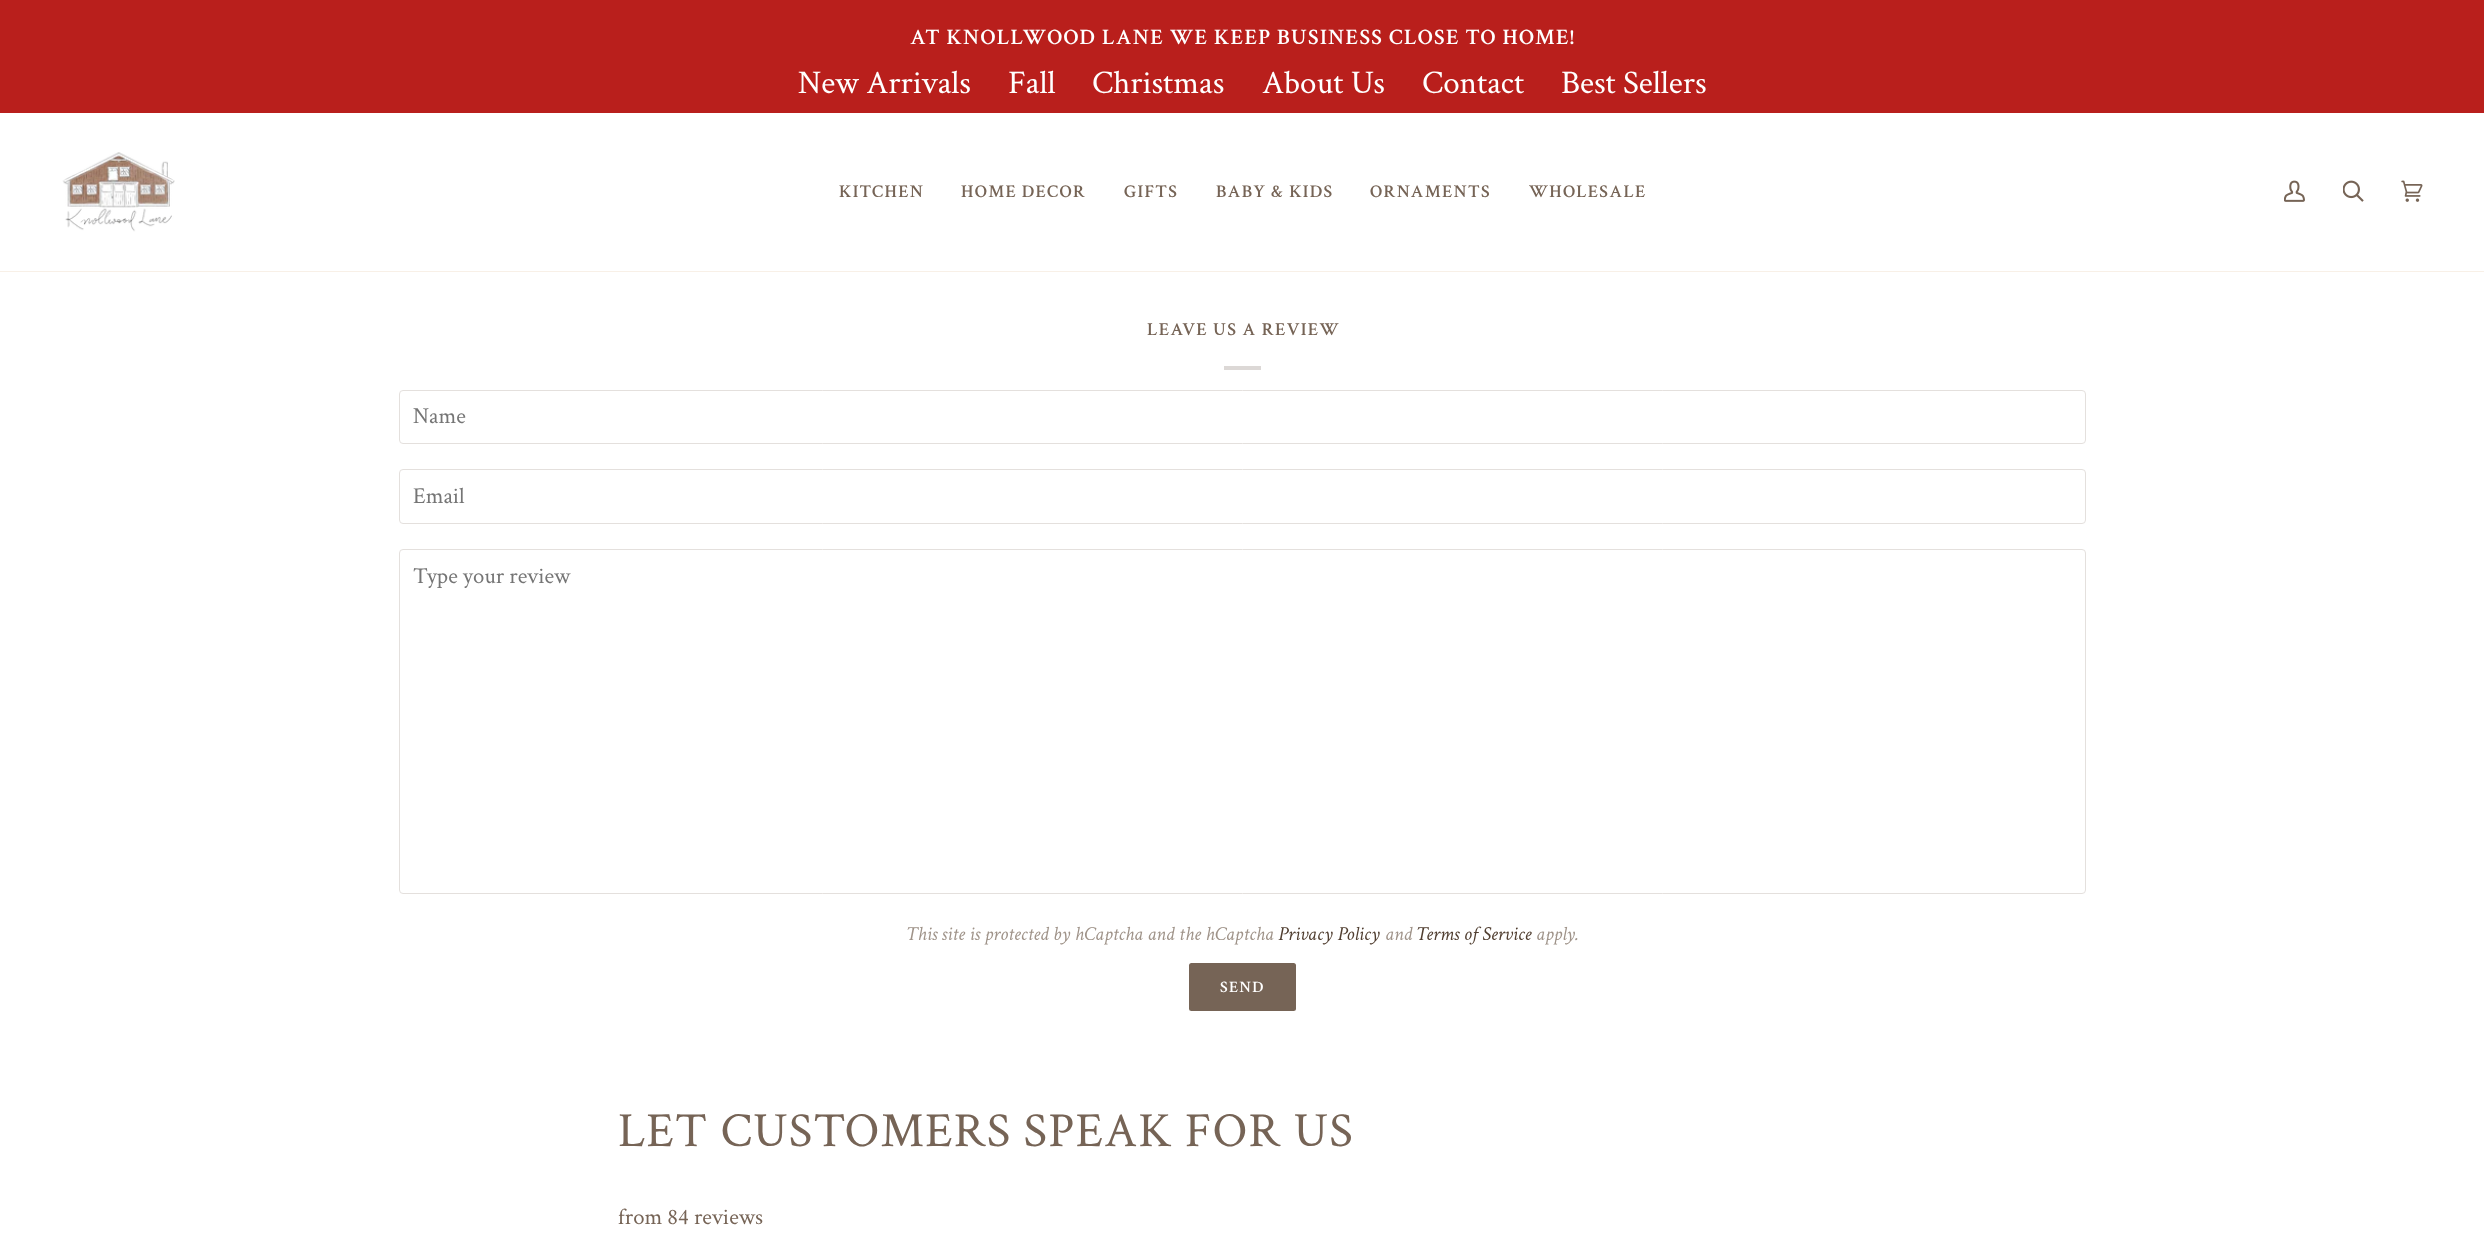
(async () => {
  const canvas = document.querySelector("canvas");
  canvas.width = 2484;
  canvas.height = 1239;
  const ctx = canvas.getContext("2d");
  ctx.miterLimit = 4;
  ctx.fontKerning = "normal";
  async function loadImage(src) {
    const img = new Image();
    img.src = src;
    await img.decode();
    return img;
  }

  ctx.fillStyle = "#ffffff";
  ctx.fillRect(0, 0, 2484, 1239);
  ctx.fillStyle = "#f8f0e7";
  ctx.fillRect(0, 271, 2484, 1);
  ctx.fillStyle = "#b91f1c";
  ctx.fillRect(0, 0, 2484, 113);
  ctx.drawImage(await loadImage("img/1.png"), 62, 152, 113, 80);
  ctx.drawImage(await loadImage("img/2.png"), 2284, 180, 21, 22);
  ctx.drawImage(await loadImage("img/3.png"), 2343, 180, 21, 22);
  ctx.drawImage(await loadImage("img/4.png"), 2401, 180, 22, 22);
  ctx.fillStyle = "#dcd8d6";
  ctx.fillRect(1224, 366, 37, 4);
  ctx.beginPath();
  ctx.roundRect(399.5, 390.5, 1686, 53, 3.5);
  ctx.strokeStyle = "#e4e0dd";
  ctx.stroke();
  ctx.beginPath();
  ctx.roundRect(399.5, 469.5, 1686, 54, 3.5);
  ctx.stroke();
  ctx.beginPath();
  ctx.roundRect(399.5, 549.5, 1686, 344, 3.5);
  ctx.stroke();
  ctx.fillStyle = "#766456";
  ctx.beginPath();
  ctx.roundRect(1189, 963, 107, 48, 2.5);
  ctx.fill();
  ctx.letterSpacing = "1.25px";
  ctx.font = "600 22.1px Crimson Text";
  ctx.fillStyle = "#ffffff";
  ctx.fillText("AT KNOLLWOOD LANE WE KEEP BUSINESS CLOSE TO HOME!", 910, 44);
  ctx.letterSpacing = "0px";
  ctx.font = "33px Crimson Text";
  for (const [text, x, y] of [
    ["New Arrivals", 798, 93],
    ["Fall", 1008, 93],
    ["Christmas", 1092, 93],
    ["About Us", 1262, 93],
    ["Contact", 1422, 93],
    ["Best Sellers", 1561, 93],
  ]) {
    ctx.fillText(text, x, y);
  }
  ctx.letterSpacing = "1.25px";
  ctx.font = "600 18px Crimson Text";
  ctx.fillStyle = "#766456";
  for (const [text, x, y] of [
    ["KITCHEN", 839, 197],
    ["HOME DECOR", 961, 197],
    ["GIFTS", 1124, 197],
    ["BABY & KIDS", 1216, 197],
    ["ORNAMENTS", 1370, 197],
    ["WHOLESALE", 1529, 197],
  ]) {
    ctx.fillText(text, x, y);
  }
  ctx.font = "600 18.25px Crimson Text";
  ctx.fillText("LEAVE US A REVIEW", 1147, 335);
  ctx.letterSpacing = "0px";
  ctx.font = "22.75px Crimson Text";
  ctx.fillStyle = "#757575";
  for (const [text, x, y] of [
    ["Name", 413, 423],
    ["Email", 413, 503],
    ["Type your review", 413, 583],
  ]) {
    ctx.fillText(text, x, y);
  }
  ctx.font = "italic 19.9px Crimson Text";
  ctx.fillStyle = "#9f9389";
  ctx.fillText("This site is protected by hCaptcha and the hCaptcha", 906, 940);
  ctx.fillStyle = "#503e30";
  ctx.fillText("Privacy Policy", 1278, 940);
  ctx.fillStyle = "#9f9389";
  ctx.fillText("and", 1385, 940);
  ctx.fillStyle = "#503e30";
  ctx.fillText("Terms of Service", 1416, 940);
  ctx.fillStyle = "#9f9389";
  ctx.fillText("apply.", 1536, 940);
  ctx.letterSpacing = "1.25px";
  ctx.font = "600 16px Crimson Text";
  ctx.fillStyle = "#ffffff";
  ctx.fillText("SEND", 1220, 992);
  ctx.font = "49px Crimson Text";
  ctx.fillStyle = "#766456";
  ctx.fillText("LET CUSTOMERS SPEAK FOR US", 618, 1146);
  ctx.letterSpacing = "0px";
  ctx.font = "22.75px Crimson Text";
  ctx.fillText("from 84 reviews", 618, 1224);
})();
